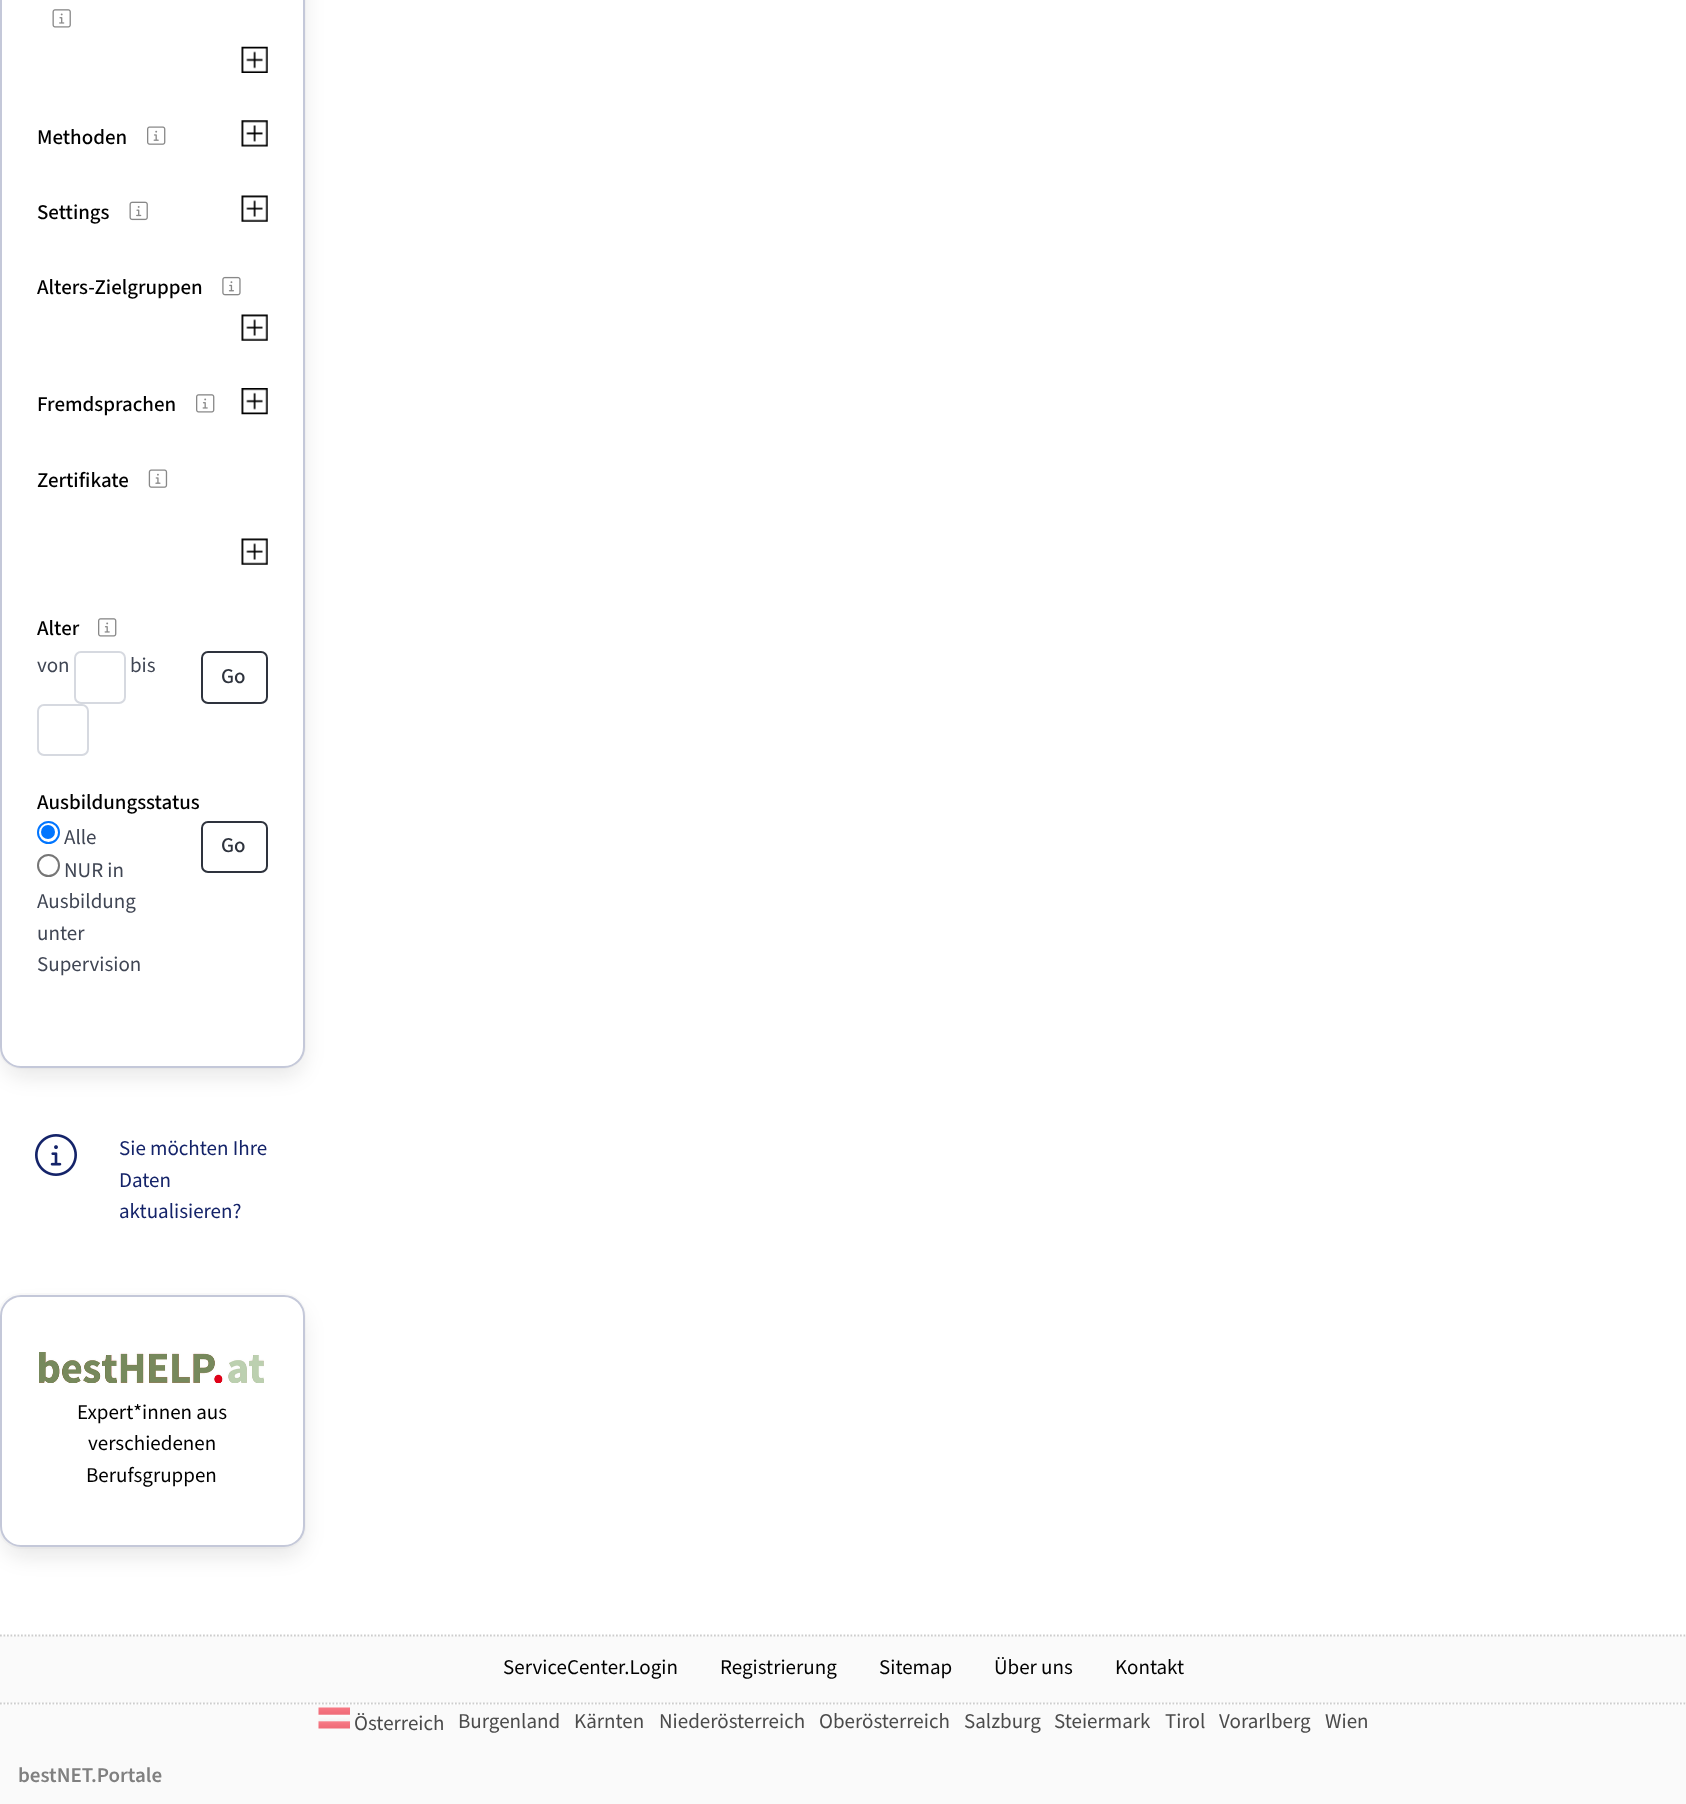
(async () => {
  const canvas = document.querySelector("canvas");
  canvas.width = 1686;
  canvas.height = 1804;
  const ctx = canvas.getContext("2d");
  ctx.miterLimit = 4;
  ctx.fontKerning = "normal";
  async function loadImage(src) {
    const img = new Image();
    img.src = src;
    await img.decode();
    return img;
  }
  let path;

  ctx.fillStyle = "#ffffff";
  ctx.fillRect(0, 0, 1686, 1804);
  ctx.beginPath();
  ctx.roundRect(-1, -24, 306, 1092, 22);
  ctx.strokeStyle = "#fafafa";
  ctx.lineWidth = 2;
  ctx.stroke();
  ctx.fillStyle = "rgba(9, 10, 12, 0.1)";
  ctx.filter = "blur(10.5px)";
  ctx.beginPath();
  ctx.roundRect(4, -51, 299, 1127, 19);
  ctx.fill();
  ctx.filter = "none";
  ctx.fillStyle = "#ffffff";
  ctx.beginPath();
  ctx.roundRect(1, -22, 303, 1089, 20);
  ctx.fill();
  ctx.strokeStyle = "#c4c8d9";
  ctx.stroke();
  ctx.drawImage(await loadImage("img/1.png"), 52, 9, 19, 19);
  ctx.drawImage(await loadImage("img/2.png"), 241, 46, 27, 27);
  ctx.drawImage(await loadImage("img/3.png"), 147, 126, 19, 19);
  ctx.drawImage(await loadImage("img/4.png"), 241, 120, 27, 27);
  ctx.drawImage(await loadImage("img/5.png"), 129, 201, 19, 20);
  ctx.drawImage(await loadImage("img/6.png"), 241, 195, 27, 27);
  ctx.drawImage(await loadImage("img/7.png"), 222, 276, 19, 20);
  ctx.drawImage(await loadImage("img/6.png"), 241, 314, 27, 27);
  ctx.drawImage(await loadImage("img/8.png"), 196, 394, 19, 19);
  ctx.drawImage(await loadImage("img/9.png"), 241, 388, 27, 27);
  ctx.drawImage(await loadImage("img/10.png"), 148, 469, 20, 19);
  ctx.drawImage(await loadImage("img/6.png"), 241, 538, 27, 27);
  ctx.drawImage(await loadImage("img/8.png"), 98, 618, 19, 19);
  ctx.beginPath();
  ctx.roundRect(75, 652, 50, 51, 6);
  ctx.strokeStyle = "#d6d9e0";
  ctx.stroke();
  ctx.beginPath();
  ctx.roundRect(38, 705, 50, 50, 6);
  ctx.stroke();
  ctx.beginPath();
  ctx.roundRect(202, 652, 65, 51, 6);
  ctx.strokeStyle = "#2e333d";
  ctx.stroke();
  ctx.beginPath();
  ctx.arc(48.5, 832.5, 10.5, 0, Math.PI * 2);
  ctx.strokeStyle = "#0075ff";
  ctx.stroke();
  ctx.fillStyle = "#0075ff";
  ctx.beginPath();
  ctx.arc(48, 832, 7, 0, Math.PI * 2);
  ctx.fill();
  ctx.beginPath();
  ctx.arc(48.5, 865.5, 10.5, 0, Math.PI * 2);
  ctx.strokeStyle = "#767676";
  ctx.stroke();
  ctx.beginPath();
  ctx.roundRect(202, 822, 65, 50, 6);
  ctx.strokeStyle = "#2e333d";
  ctx.stroke();
  ctx.drawImage(await loadImage("img/11.png"), 35, 1134, 42, 42);
  ctx.beginPath();
  ctx.roundRect(-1, 1294, 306, 254, 22);
  ctx.strokeStyle = "#fafafa";
  ctx.stroke();
  ctx.fillStyle = "rgba(9, 10, 12, 0.1)";
  ctx.filter = "blur(10.5px)";
  ctx.beginPath();
  ctx.roundRect(4, 1309, 299, 247, 19);
  ctx.fill();
  ctx.filter = "none";
  ctx.fillStyle = "#ffffff";
  ctx.beginPath();
  ctx.roundRect(1, 1296, 303, 250, 20);
  ctx.fill();
  ctx.strokeStyle = "#c4c8d9";
  ctx.stroke();
  ctx.drawImage(await loadImage("img/12.png"), 39, 1352, 225, 31);
  ctx.fillStyle = "#fafafa";
  ctx.fillRect(0, 1636, 1686, 67);
  path = new Path2D("M0 1635.5H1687");
  ctx.strokeStyle = "#cdcdcd";
  ctx.lineWidth = 1.8;
  ctx.setLineDash([1.75, 1.75]);
  ctx.stroke(path);
  path = new Path2D("M0 1703.5H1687");
  ctx.stroke(path);
  ctx.fillRect(0, 1705, 1686, 99);
  ctx.drawImage(await loadImage("img/13.png"), 318, 1707, 32, 22);
  ctx.font = "500 21px 'Source Sans 3'";
  ctx.fillStyle = "#000000";
  for (const [text, x, y] of [
    ["Methoden", 37, 144],
    ["Settings", 37, 219],
    ["Alters-Zielgruppen", 37, 294],
    ["Fremdsprachen", 37, 411],
    ["Zertifikate", 37, 487],
    ["Alter", 37, 635],
  ]) {
    ctx.fillText(text, x, y);
  }
  ctx.font = "21px 'Source Sans 3'";
  ctx.fillStyle = "#404654";
  ctx.fillText("von", 37, 672);
  ctx.fillText("bis", 130, 672);
  ctx.font = "500 21px 'Source Sans 3'";
  ctx.fillStyle = "#2e333d";
  ctx.fillText("Go", 221, 683);
  ctx.fillStyle = "#000000";
  ctx.fillText("Ausbildungsstatus", 37, 809);
  ctx.font = "21px 'Source Sans 3'";
  ctx.fillStyle = "#404654";
  for (const [text, x, y] of [
    ["Alle", 64, 844],
    ["NUR in", 64, 877],
    ["Ausbildung", 37, 908],
    ["unter", 37, 940],
    ["Supervision", 37, 971],
  ]) {
    ctx.fillText(text, x, y);
  }
  ctx.font = "500 21px 'Source Sans 3'";
  ctx.fillStyle = "#2e333d";
  ctx.fillText("Go", 221, 852);
  ctx.font = "21px 'Source Sans 3'";
  ctx.fillStyle = "#142369";
  for (const [text, x, y] of [
    ["Sie möchten Ihre", 119, 1155],
    ["Daten", 119, 1187],
    ["aktualisieren?", 119, 1218],
  ]) {
    ctx.fillText(text, x, y);
  }
  ctx.fillStyle = "#000000";
  for (const [text, x, y] of [
    ["Expert*innen aus", 77, 1419],
    ["verschiedenen", 88, 1450],
    ["Berufsgruppen", 86, 1482],
    ["ServiceCenter.Login", 503, 1674],
    ["Registrierung", 720, 1674],
    ["Sitemap", 879, 1674],
    ["Über uns", 994, 1674],
    ["Kontakt", 1115, 1674],
  ]) {
    ctx.fillText(text, x, y);
  }
  ctx.fillStyle = "#4b4b4b";
  for (const [text, x, y] of [
    ["Österreich", 354, 1730],
    ["Burgenland", 458, 1728],
    ["Kärnten", 574, 1728],
    ["Niederösterreich", 659, 1728],
    ["Oberösterreich", 819, 1728],
    ["Salzburg", 964, 1728],
    ["Steiermark", 1054, 1728],
    ["Tirol", 1165, 1728],
    ["Vorarlberg", 1219, 1728],
    ["Wien", 1325, 1728],
  ]) {
    ctx.fillText(text, x, y);
  }
  ctx.font = "600 21px 'Source Sans 3'";
  ctx.fillStyle = "#808080";
  ctx.fillText("bestNET.Portale", 18, 1782);
})();
